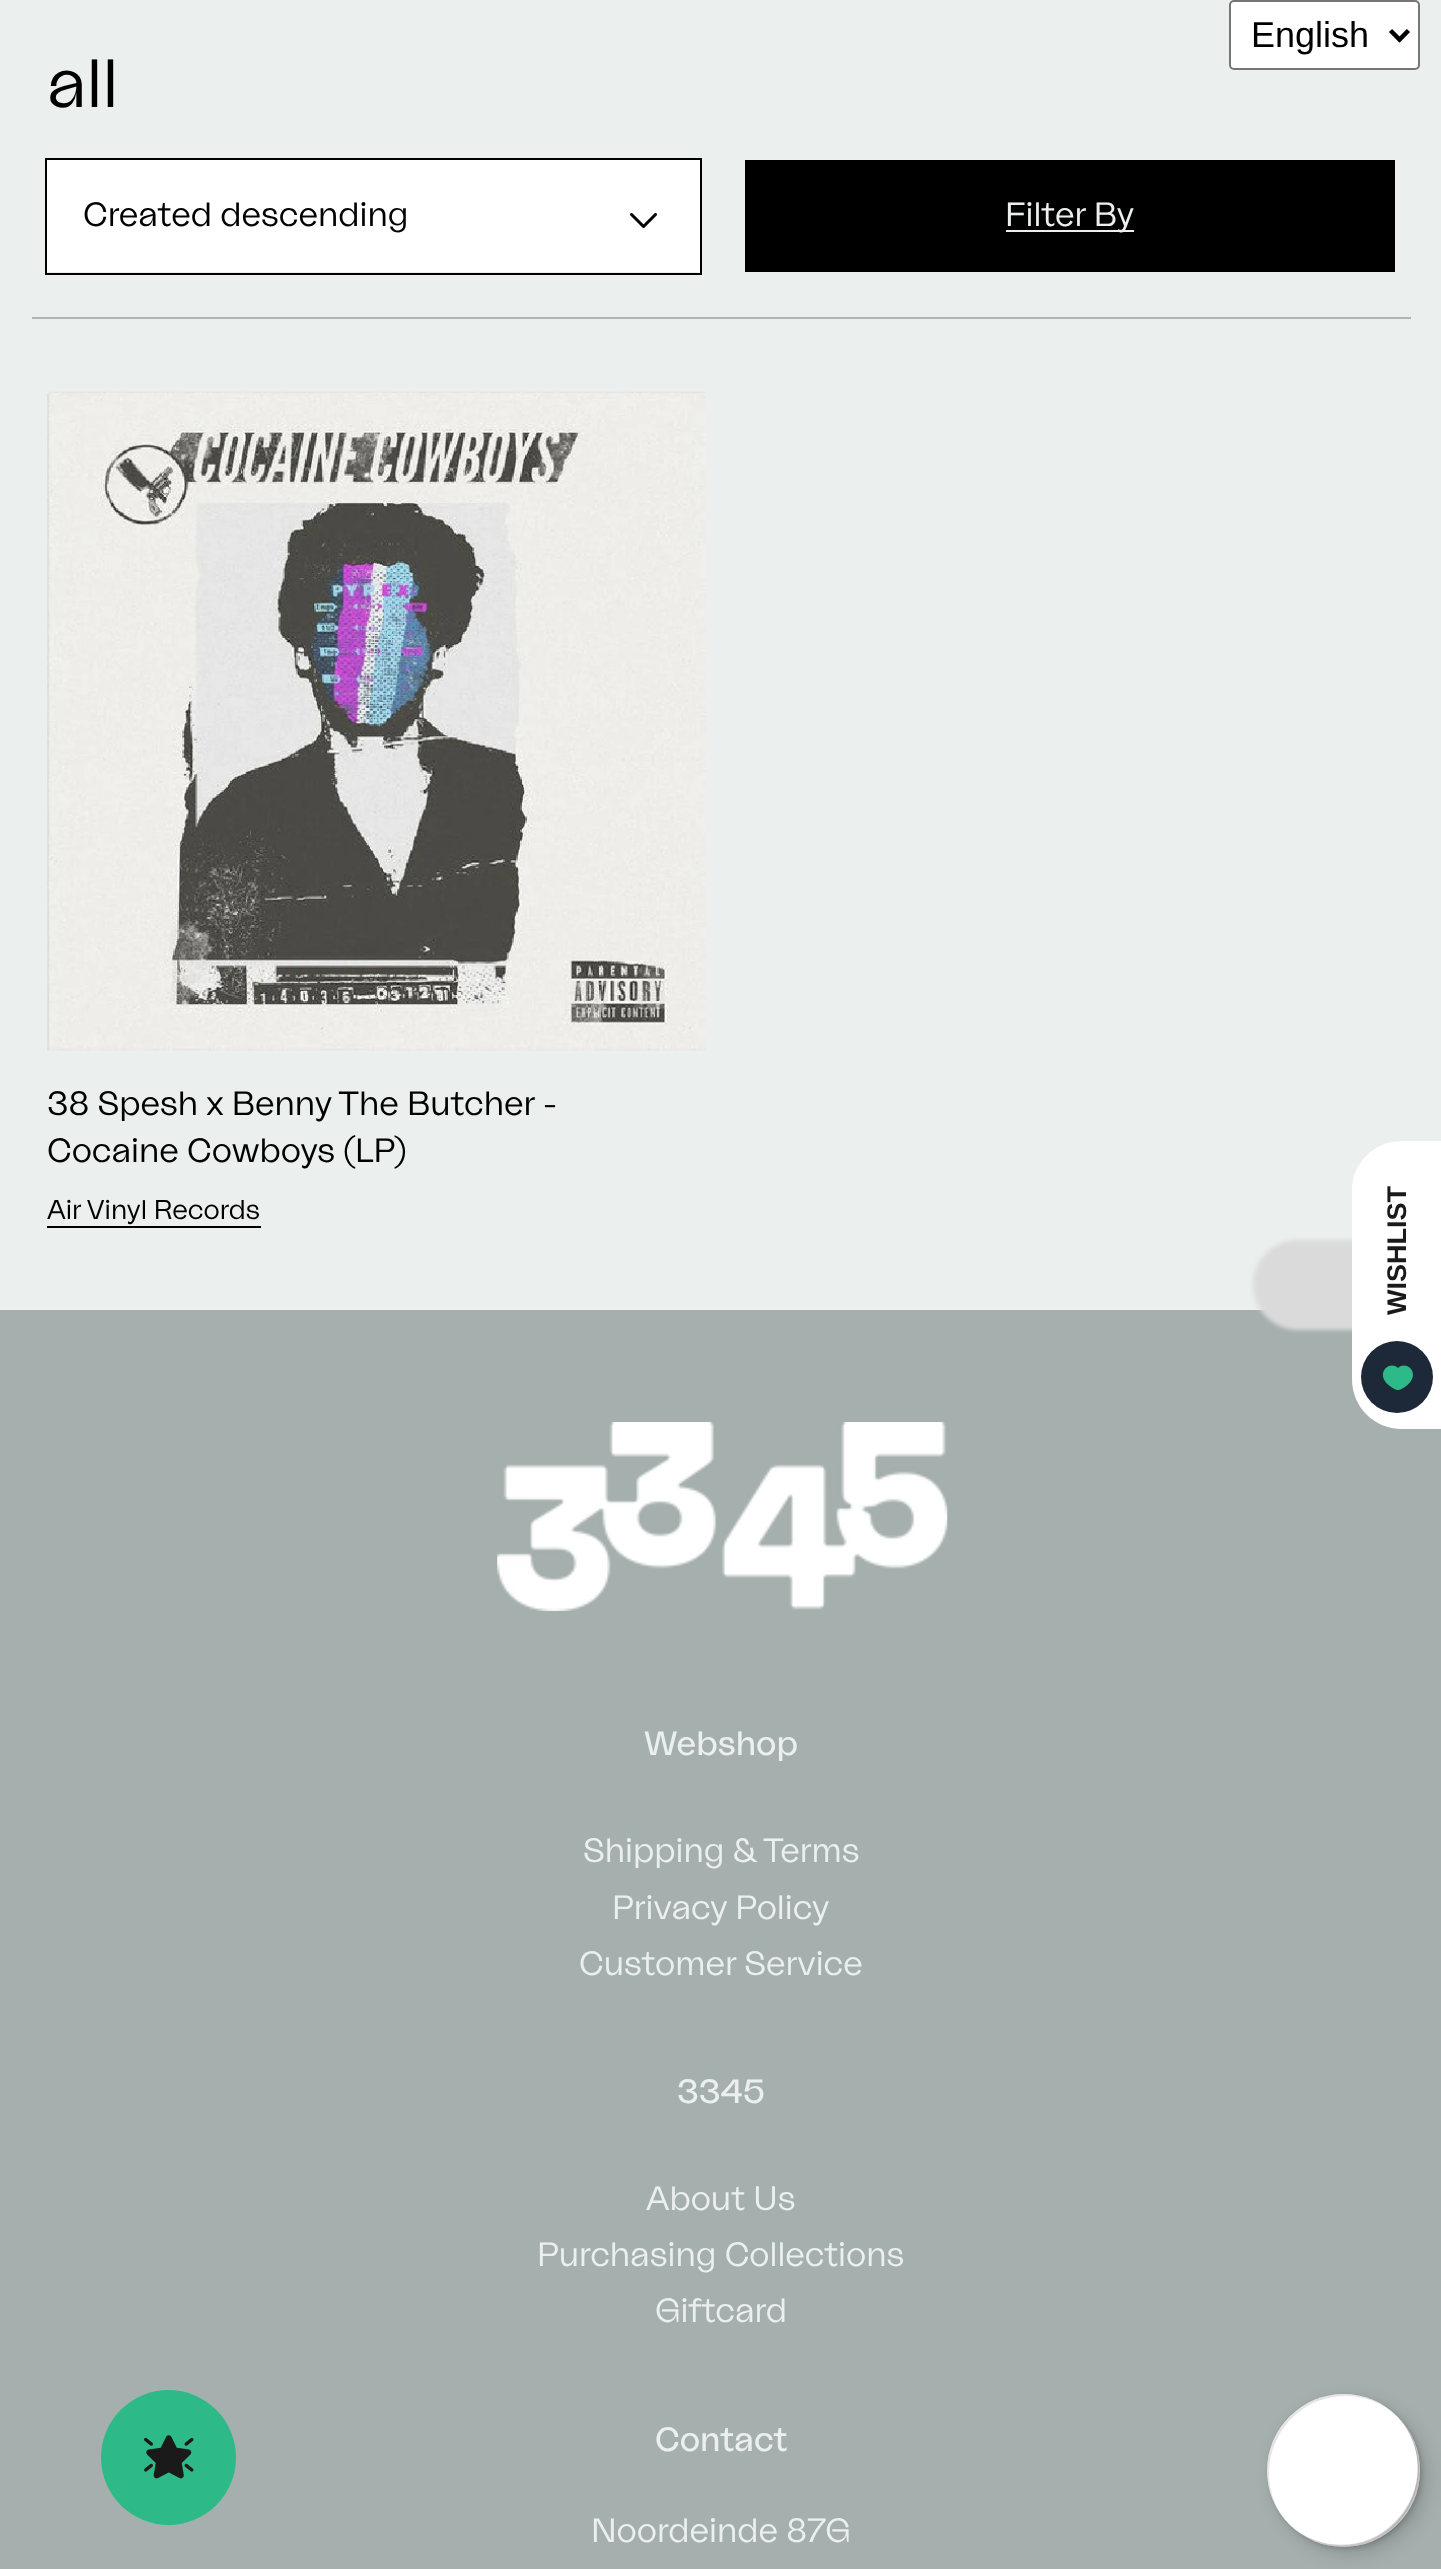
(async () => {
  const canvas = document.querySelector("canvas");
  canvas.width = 1441;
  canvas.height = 2569;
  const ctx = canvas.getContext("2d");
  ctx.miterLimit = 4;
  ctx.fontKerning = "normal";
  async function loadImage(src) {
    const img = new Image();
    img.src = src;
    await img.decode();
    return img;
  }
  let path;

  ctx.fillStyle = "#ebefee";
  ctx.fillRect(0, 0, 1441, 2569);
  ctx.fillStyle = "#ffffff";
  ctx.beginPath();
  ctx.roundRect(1230, 1, 189, 68, 4);
  ctx.fill();
  ctx.strokeStyle = "#767676";
  ctx.lineWidth = 2;
  ctx.stroke();
  path = new Path2D("M1390.5 30.5L1399.5 39.5L1408.5 30.5");
  ctx.strokeStyle = "#000000";
  ctx.lineWidth = 4.5;
  ctx.stroke(path);
  ctx.fillStyle = "#b0b3b3";
  ctx.fillRect(32, 317, 1379, 2);
  ctx.lineWidth = 2;
  ctx.strokeRect(46, 159, 655, 115);
  ctx.fillStyle = "#ffffff";
  ctx.fillRect(47, 160, 653, 112);
  ctx.drawImage(await loadImage("img/1.png"), 630, 213, 27, 15);
  ctx.fillStyle = "#000000";
  ctx.fillRect(745, 160, 650, 112);
  ctx.fillStyle = "#ebefee";
  ctx.fillRect(1006, 230, 128, 2);
  ctx.drawImage(await loadImage("img/2.png"), 47, 391, 659, 660);
  ctx.fillStyle = "#000000";
  ctx.fillRect(47, 1226, 214, 2);
  ctx.fillStyle = "#a5afae";
  ctx.fillRect(0, 1310, 1441, 1259);
  ctx.fillStyle = "#dadada";
  ctx.filter = "blur(2px)";
  ctx.beginPath();
  ctx.roundRect(1253, 1240, 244, 90, 50);
  ctx.fill();
  ctx.filter = "none";
  ctx.fillStyle = "#ffffff";
  path = new Path2D("M1352 1379V1190C1352 1163 1374 1141 1402 1141H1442V1429H1402C1374 1429 1352 1407 1352 1379Z");
  ctx.fill(path);
  ctx.fillStyle = "#1d2939";
  ctx.beginPath();
  ctx.arc(1397, 1377, 36, 0, Math.PI * 2);
  ctx.fill();
  ctx.fillStyle = "#2eba88";
  path = new Path2D("M1398 1368C1388.5 1359.5 1374 1375 1390.5 1386.5C1392.5 1388 1395.5 1390 1398 1390C1400.5 1390 1403.5 1388 1405.5 1386.5C1422 1375 1407.5 1359.5 1398 1368Z");
  ctx.fill(path);
  ctx.beginPath();
  ctx.arc(168.5, 2457.5, 67.5, 0, Math.PI * 2);
  ctx.fill();
  ctx.drawImage(await loadImage("img/3.png"), 144, 2435, 50, 44);
  ctx.drawImage(await loadImage("img/4.png"), 497, 1422, 451, 189);
  ctx.fillStyle = "rgba(0, 0, 0, 0.15)";
  ctx.filter = "blur(9px)";
  ctx.beginPath();
  ctx.roundRect(1274, 2401, 153, 153, 76.5);
  ctx.fill();
  ctx.filter = "none";
  ctx.filter = "blur(2px)";
  ctx.beginPath();
  ctx.roundRect(1269, 2396, 153, 153, 76.5);
  ctx.fill();
  ctx.filter = "none";
  ctx.fillStyle = "#ffffff";
  ctx.beginPath();
  ctx.arc(1343.5, 2470.5, 76.5, 0, Math.PI * 2);
  ctx.fill();
  ctx.fillStyle = "rgba(0, 0, 0, 0.1)";
  path = new Path2D("M1346 2396C1368 2396 1387 2405 1401 2420C1372 2387 1321 2385 1289 2416C1260 2446 1260 2493 1288 2523C1245 2474 1280 2396 1346 2396Z");
  ctx.fill(path);
  ctx.fillStyle = "rgba(0, 0, 0, 0.2)";
  path = new Path2D("M1292 2527C1322 2554 1369 2554 1398 2525C1429 2493 1427 2442 1394 2413C1425 2442 1426 2491 1395 2522C1367 2551 1322 2552 1292 2527Z");
  ctx.fill(path);
  ctx.fillStyle = "rgba(50, 50, 50, 0.2)";
  path = new Path2D("M1295 2530C1329 2558 1382 2551 1407 2513C1431 2477 1420 2427 1383 2405C1404 2418 1418 2442 1418 2469C1418 2511 1384 2546 1342 2546C1324 2546 1308 2540 1295 2530Z");
  ctx.fill(path);
  ctx.fillStyle = "rgba(255, 255, 255, 0.3)";
  path = new Path2D("M1295 2530C1330 2558 1382 2551 1407 2513C1429 2480 1422 2435 1391 2410C1421 2435 1428 2479 1406 2512C1381 2549 1330 2557 1295 2530Z");
  ctx.fill(path);
  ctx.font = "36px Liberation Sans";
  ctx.fillStyle = "#000000";
  ctx.fillText("English", 1251, 47);
  ctx.font = "300 68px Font";
  ctx.fillText("all", 47, 107);
  ctx.font = "300 33.75px Font";
  ctx.fillText("Created descending", 83, 226);
  ctx.fillStyle = "#ebefee";
  ctx.fillText("Filter By", 1005, 226);
  ctx.fillStyle = "#000000";
  ctx.fillText("38 Spesh x Benny The Butcher -", 47, 1115);
  ctx.fillText("Cocaine Cowboys (LP)", 47, 1162);
  ctx.font = "300 27px Font";
  ctx.fillText("Air Vinyl Records", 47, 1219);
  ctx.font = "bold 27px Liberation Sans";
  ctx.fillStyle = "#1a1a1a";
  ctx.save();
  ctx.translate(1406, 1315);
  ctx.rotate(-90 * Math.PI / 180);
  ctx.fillText("WISHLIST", 0, 0);
  ctx.restore();
  ctx.font = "33.75px Font";
  ctx.fillStyle = "#ebefee";
  ctx.fillText("Webshop", 644, 1755);
  ctx.font = "300 33.75px Font";
  for (const [text, x, y] of [
    ["Shipping & Terms", 583, 1862],
    ["Privacy Policy", 612, 1919],
    ["Customer Service", 579, 1975],
  ]) {
    ctx.fillText(text, x, y);
  }
  ctx.font = "33.75px Font";
  ctx.fillText("3345", 677, 2103);
  ctx.font = "300 33.75px Font";
  for (const [text, x, y] of [
    ["About Us", 646, 2210],
    ["Purchasing Collections", 537, 2266],
    ["Giftcard", 655, 2322],
  ]) {
    ctx.fillText(text, x, y);
  }
  ctx.font = "33.75px Font";
  ctx.fillText("Contact", 655, 2451);
  ctx.font = "300 33.75px Font";
  ctx.fillText("Noordeinde 87G", 591, 2542);
})();
